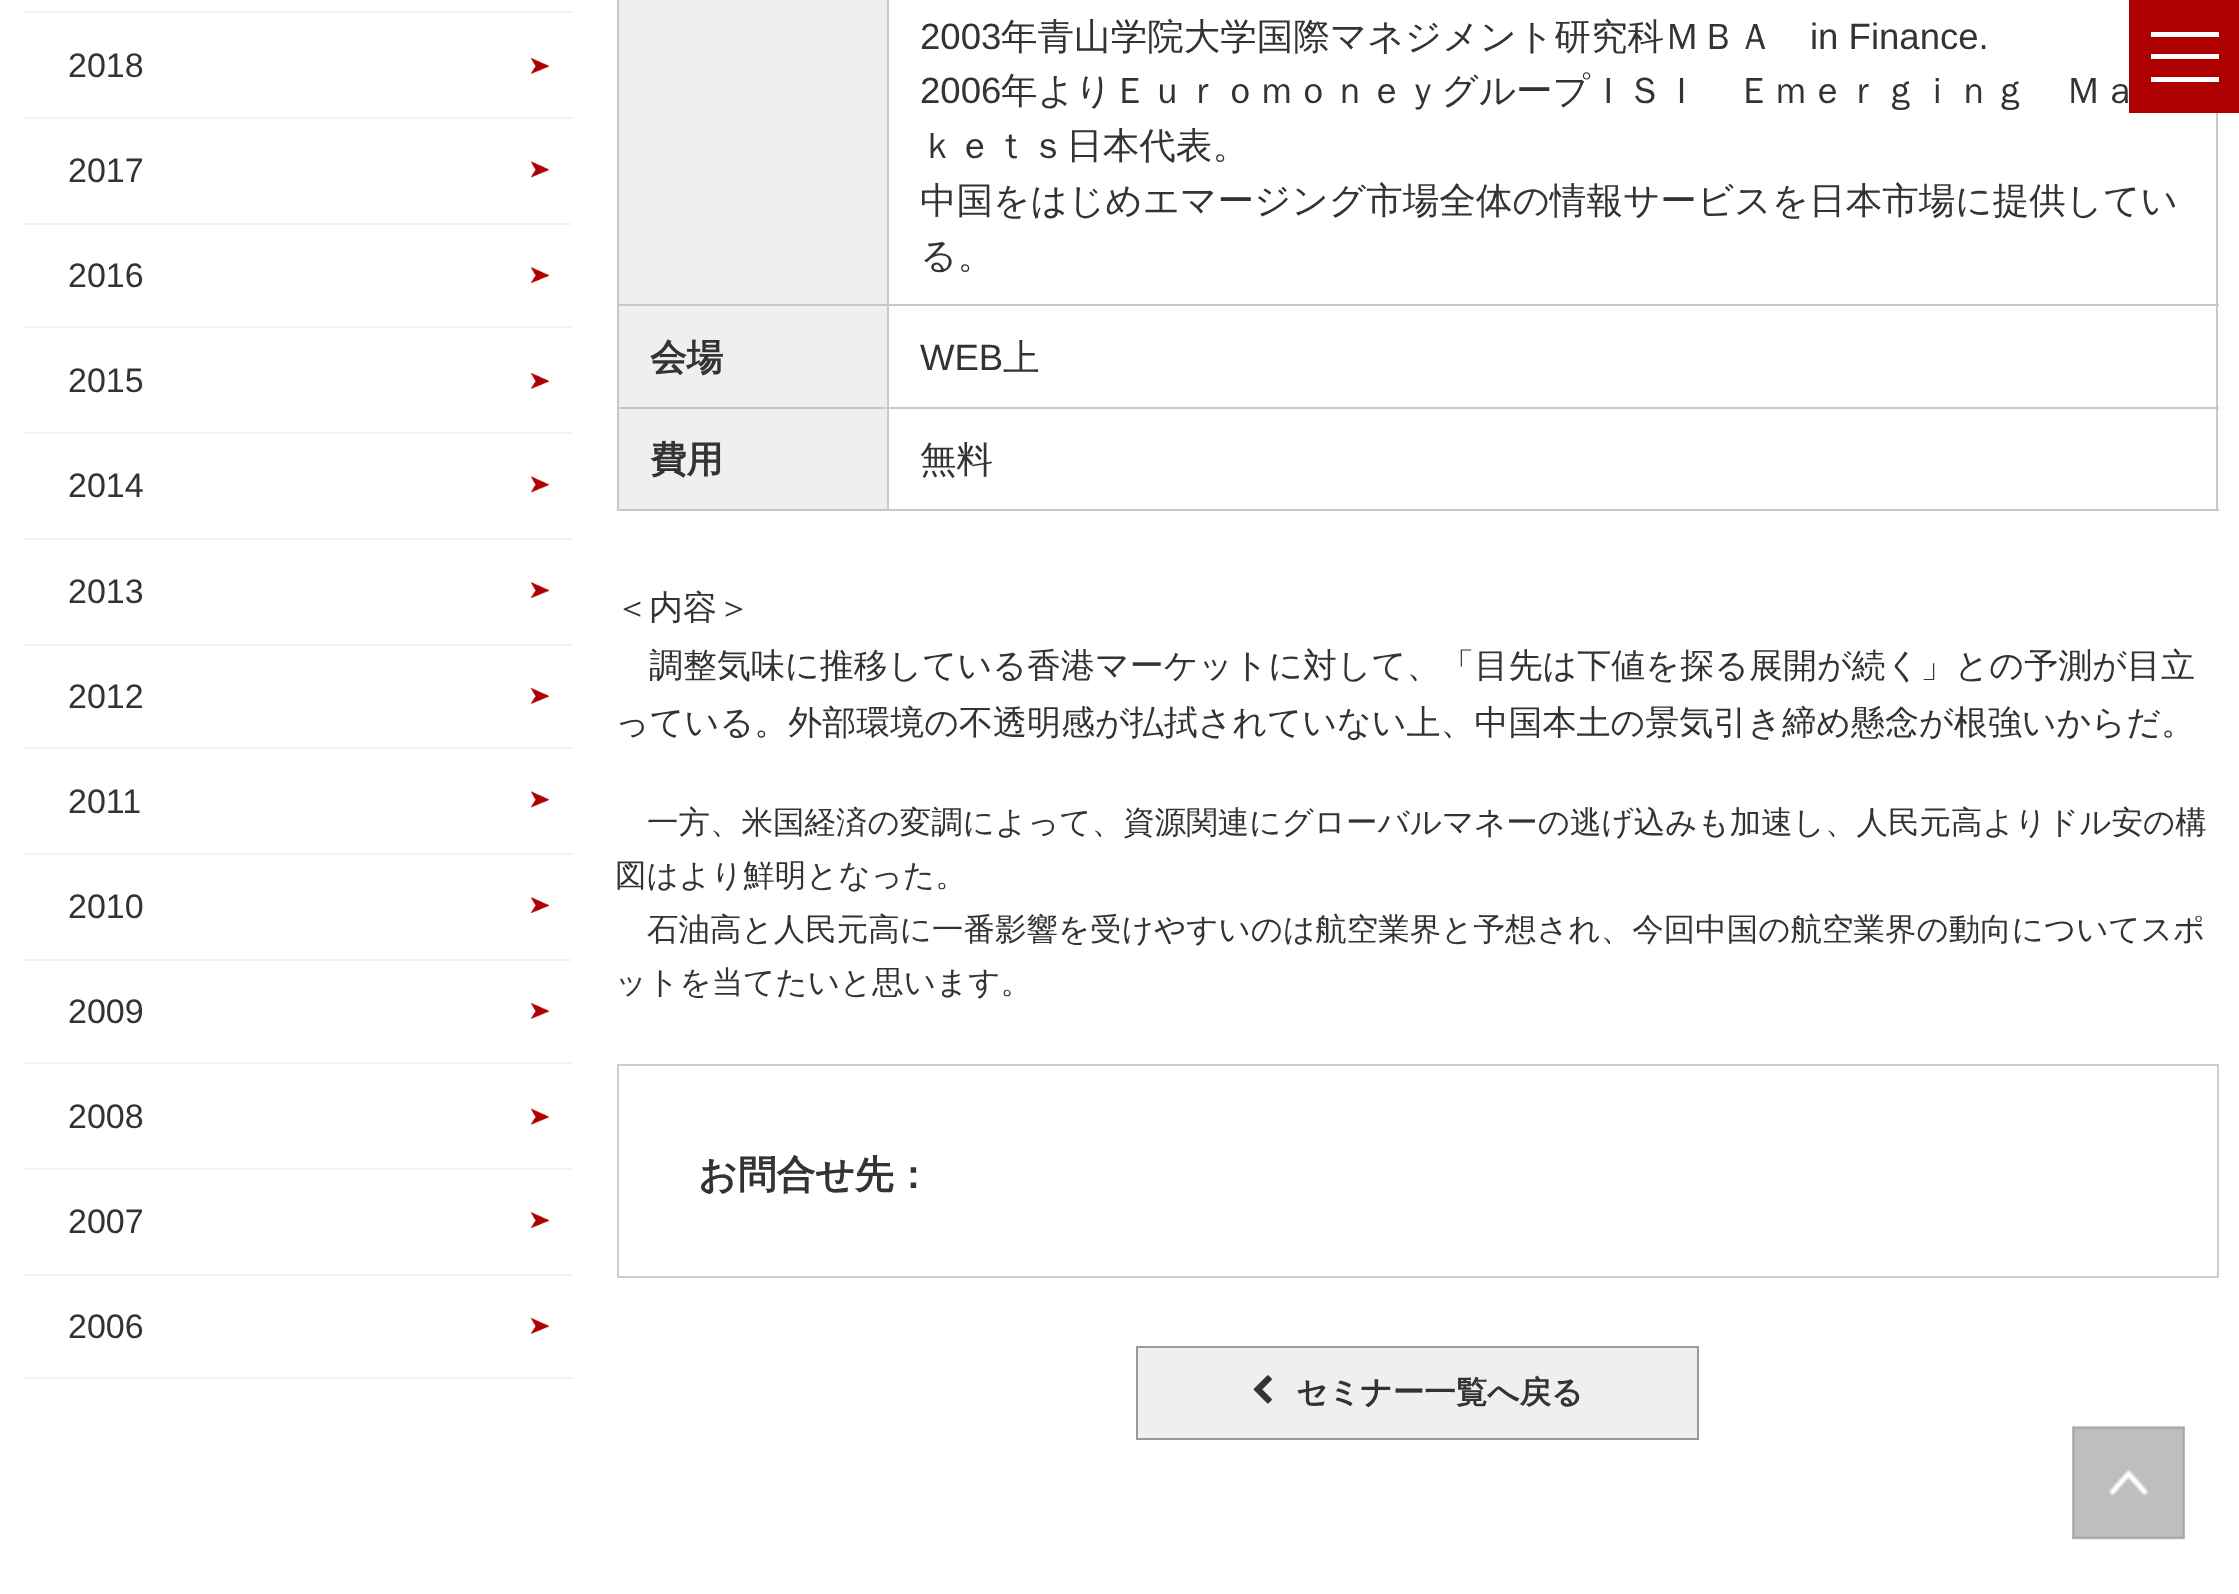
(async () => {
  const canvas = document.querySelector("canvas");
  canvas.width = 2239;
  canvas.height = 1594;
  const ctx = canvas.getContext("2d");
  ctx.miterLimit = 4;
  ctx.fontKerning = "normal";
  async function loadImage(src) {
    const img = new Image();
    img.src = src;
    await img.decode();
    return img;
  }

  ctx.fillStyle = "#ffffff";
  ctx.fillRect(0, 0, 2239, 1594);
  for (const [x, y, w, h, color] of [
    [2129, 0, 110, 113, "#af0001"],
    [2151, 54, 68, 5, "#ffffff"],
    [2151, 32, 68, 5, "#ffffff"],
    [2151, 77, 68, 5, "#ffffff"],
    [23, 11, 549, 2, "#f2f2f2"],
    [23, 117, 549, 2, "#f2f2f2"],
  ]) {
    ctx.fillStyle = color;
    ctx.fillRect(x, y, w, h);
  }
  ctx.drawImage(await loadImage("img/1.png"), 531, 58, 18, 16);
  ctx.fillRect(23, 223, 549, 2);
  ctx.drawImage(await loadImage("img/2.png"), 531, 161, 18, 17);
  ctx.fillRect(23, 326, 549, 2);
  ctx.drawImage(await loadImage("img/3.png"), 531, 267, 18, 16);
  ctx.fillRect(23, 432, 549, 2);
  ctx.drawImage(await loadImage("img/1.png"), 531, 373, 18, 16);
  ctx.fillRect(23, 538, 549, 2);
  ctx.drawImage(await loadImage("img/2.png"), 531, 476, 18, 17);
  ctx.fillRect(23, 644, 549, 2);
  ctx.drawImage(await loadImage("img/3.png"), 531, 582, 18, 16);
  ctx.fillRect(23, 747, 549, 2);
  ctx.drawImage(await loadImage("img/1.png"), 531, 688, 18, 16);
  ctx.fillRect(23, 853, 549, 2);
  ctx.drawImage(await loadImage("img/2.png"), 531, 791, 18, 17);
  ctx.fillRect(23, 959, 549, 2);
  ctx.drawImage(await loadImage("img/3.png"), 531, 897, 18, 16);
  ctx.fillRect(23, 1062, 549, 2);
  ctx.drawImage(await loadImage("img/1.png"), 531, 1003, 18, 16);
  ctx.fillRect(23, 1168, 549, 2);
  ctx.drawImage(await loadImage("img/4.png"), 531, 1108, 18, 17);
  ctx.fillRect(23, 1274, 549, 2);
  ctx.drawImage(await loadImage("img/3.png"), 531, 1212, 18, 16);
  ctx.fillRect(23, 1377, 549, 2);
  ctx.drawImage(await loadImage("img/1.png"), 531, 1318, 18, 16);
  for (const [x, y, w, h, color] of [
    [617, 0, 2, 511, "#c8c8c8"],
    [619, 0, 268, 304, "#efefef"],
    [2216, 113, 2, 398, "#c8c8c8"],
    [887, 509, 1332, 2, "#c8c8c8"],
    [887, 407, 2, 104, "#c8c8c8"],
    [887, 407, 1332, 2, "#c8c8c8"],
    [887, 304, 2, 106, "#c8c8c8"],
    [887, 304, 1332, 2, "#c8c8c8"],
    [887, 0, 2, 306, "#c8c8c8"],
    [617, 304, 272, 2, "#c8c8c8"],
    [619, 306, 268, 101, "#efefef"],
    [617, 407, 272, 2, "#c8c8c8"],
    [619, 409, 268, 100, "#efefef"],
    [617, 509, 272, 2, "#c8c8c8"],
  ]) {
    ctx.fillStyle = color;
    ctx.fillRect(x, y, w, h);
  }
  ctx.strokeStyle = "#cccccc";
  ctx.lineWidth = 2;
  ctx.strokeRect(618, 1065, 1600, 212);
  ctx.fillStyle = "#efefef";
  ctx.beginPath();
  ctx.rect(1137, 1347, 561, 92);
  ctx.fill();
  ctx.strokeStyle = "#9999a0";
  ctx.stroke();
  ctx.drawImage(await loadImage("img/5.png"), 1253, 1375, 19, 29);
  ctx.drawImage(await loadImage("img/6.png"), 2072, 1426, 113, 114);
  ctx.font = "34px Liberation Sans";
  ctx.fillStyle = "#333333";
  for (const [text, x, y] of [
    ["2018", 68, 77],
    ["2017", 68, 182],
    ["2016", 68, 287],
    ["2015", 68, 392],
    ["2014", 68, 497],
    ["2013", 68, 603],
    ["2012", 68, 708],
    ["2011", 68, 813],
    ["2010", 68, 918],
    ["2009", 68, 1023],
    ["2008", 68, 1128],
    ["2007", 68, 1233],
    ["2006", 68, 1338],
  ]) {
    ctx.fillText(text, x, y);
  }
  ctx.font = "36.55px Liberation Sans";
  ctx.fillText("2003", 920, 49);
  ctx.font = "500 36.55px WenQuanYi Zen Hei";
  ctx.fillText("年青山学院大学国際マネジメント研究科ＭＢＡ", 1001, 49);
  ctx.font = "36.55px Liberation Sans";
  ctx.fillText("in Finance.", 1810, 49);
  ctx.fillText("2006", 920, 103);
  ctx.font = "500 36.55px WenQuanYi Zen Hei";
  for (const [text, x, y] of [
    ["年よりＥｕｒｏｍｏｎｅｙグループＩＳＩ　Ｅｍｅｒｇｉｎｇ　Ｍａ", 1001, 103],
    ["ｋｅｔｓ日本代表。", 920, 158],
    ["中国をはじめエマージング市場全体の情報サービスを日本市場に提供してい", 920, 213],
    ["る。", 920, 268],
  ]) {
    ctx.fillText(text, x, y);
  }
  ctx.font = "bold 36.55px WenQuanYi Zen Hei";
  ctx.fillText("会場", 650, 370);
  ctx.font = "36.55px Liberation Sans";
  ctx.fillText("WEB", 920, 370);
  ctx.font = "500 36.55px WenQuanYi Zen Hei";
  ctx.fillText("上", 1003, 370);
  ctx.font = "bold 36.55px WenQuanYi Zen Hei";
  ctx.fillText("費用", 650, 472);
  ctx.font = "500 36.55px WenQuanYi Zen Hei";
  ctx.fillText("無料", 920, 472);
  ctx.font = "500 34px WenQuanYi Zen Hei";
  for (const [text, x, y] of [
    ["＜内容＞", 615, 619],
    ["調整気味に推移している香港マーケットに対して、「目先は下値を探る展開が続く」との予測が目立", 649, 677],
    ["っている。外部環境の不透明感が払拭されていない上、中国本土の景気引き締め懸念が根強いからだ。", 615, 734],
  ]) {
    ctx.fillText(text, x, y);
  }
  ctx.font = "500 31.5px WenQuanYi Zen Hei";
  for (const [text, x, y] of [
    ["一方、米国経済の変調によって、資源関連にグローバルマネーの逃げ込みも加速し、人民元高よりドル安の構", 647, 833],
    ["図はより鮮明となった。", 615, 886],
    ["石油高と人民元高に一番影響を受けやすいのは航空業界と予想され、今回中国の航空業界の動向についてスポ", 647, 940],
    ["ットを当てたいと思います。", 615, 993],
  ]) {
    ctx.fillText(text, x, y);
  }
  ctx.font = "bold 38.75px WenQuanYi Zen Hei";
  ctx.fillText("お問合せ先：", 698, 1188);
  ctx.font = "bold 31.5px WenQuanYi Zen Hei";
  ctx.fillText("セミナー一覧へ戻る", 1296, 1403);
})();
